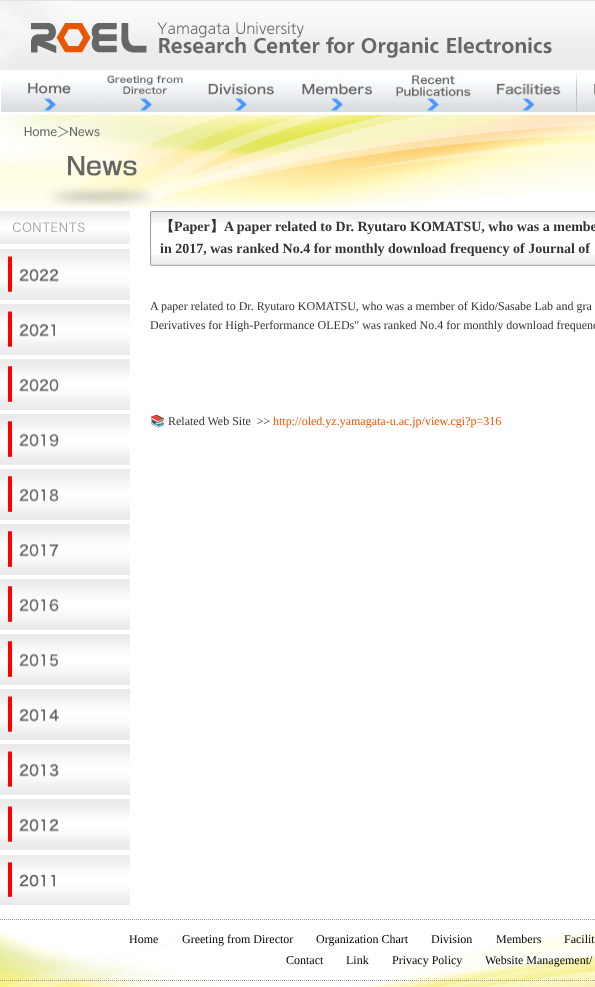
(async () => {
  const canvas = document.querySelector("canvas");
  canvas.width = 595;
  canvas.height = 987;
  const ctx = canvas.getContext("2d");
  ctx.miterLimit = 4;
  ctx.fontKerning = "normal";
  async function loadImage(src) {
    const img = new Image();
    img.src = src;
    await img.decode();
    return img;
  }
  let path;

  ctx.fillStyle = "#ffffff";
  ctx.fillRect(0, 0, 595, 987);
  ctx.drawImage(await loadImage("img/1.png"), 0, 0, 595, 70);
  ctx.drawImage(await loadImage("img/2.png"), 1, 79, 96, 33);
  ctx.drawImage(await loadImage("img/3.png"), 97, 72, 96, 40);
  ctx.drawImage(await loadImage("img/4.png"), 193, 79, 96, 33);
  ctx.drawImage(await loadImage("img/5.png"), 289, 79, 96, 33);
  ctx.drawImage(await loadImage("img/6.png"), 385, 73, 96, 39);
  ctx.drawImage(await loadImage("img/7.png"), 481, 72, 96, 40);
  ctx.drawImage(await loadImage("img/8.png"), 577, 80, 18, 32);
  ctx.drawImage(await loadImage("img/9.png"), 0, 115, 595, 95);
  ctx.drawImage(await loadImage("img/10.png"), 0, 211, 130, 33);
  ctx.drawImage(await loadImage("img/11.png"), 0, 249, 130, 51);
  ctx.drawImage(await loadImage("img/12.png"), 0, 304, 130, 51);
  ctx.drawImage(await loadImage("img/13.png"), 0, 359, 130, 51);
  ctx.drawImage(await loadImage("img/14.png"), 0, 414, 130, 51);
  ctx.drawImage(await loadImage("img/15.png"), 0, 469, 130, 51);
  ctx.drawImage(await loadImage("img/16.png"), 0, 524, 130, 51);
  ctx.drawImage(await loadImage("img/17.png"), 0, 579, 130, 51);
  ctx.drawImage(await loadImage("img/18.png"), 0, 634, 130, 51);
  ctx.drawImage(await loadImage("img/19.png"), 0, 689, 130, 51);
  ctx.drawImage(await loadImage("img/20.png"), 0, 744, 130, 51);
  ctx.drawImage(await loadImage("img/21.png"), 0, 799, 130, 51);
  ctx.drawImage(await loadImage("img/22.png"), 0, 855, 130, 50);
  ctx.drawImage(await loadImage("img/23.png"), 150, 223, 2, 31);
  ctx.drawImage(await loadImage("img/24.png"), 150, 211, 445, 12);
  ctx.drawImage(await loadImage("img/25.png"), 150, 254, 445, 12);
  path = new Path2D("M0 919.5H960");
  ctx.strokeStyle = "#999999";
  ctx.setLineDash([1, 1]);
  ctx.stroke(path);
  ctx.drawImage(await loadImage("img/26.png"), 0, 930, 595, 57);
  path = new Path2D("M0 980.5H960");
  ctx.stroke(path);
  ctx.font = "bold 14px WenQuanYi Zen Hei";
  ctx.fillStyle = "#333333";
  ctx.fillText("【", 160, 231);
  ctx.font = "bold 14px Liberation Serif";
  ctx.fillText("Paper", 174, 231);
  ctx.font = "bold 14px WenQuanYi Zen Hei";
  ctx.fillText("】", 210, 231);
  ctx.font = "bold 14px Liberation Serif";
  ctx.fillText("A paper related to Dr. Ryutaro KOMATSU, who was a membe", 224, 231);
  ctx.fillText("in 2017, was ranked No.4 for monthly download frequency of Journal of", 160, 253);
  ctx.font = "12px Liberation Serif";
  ctx.fillText("A paper related to Dr. Ryutaro KOMATSU, who was a member of Kido/Sasabe Lab and gra", 150, 310);
  ctx.fillText("Derivatives for High-Performance OLEDs\" was ranked No.4 for monthly download frequenc", 150, 329);
  ctx.font = "12px Noto Color Emoji";
  ctx.fillText("📚", 150, 425);
  ctx.font = "12px Liberation Serif";
  ctx.fillText("Related Web Site  >>", 168, 425);
  ctx.fillStyle = "#ea5405";
  ctx.fillText("http://oled.yz.yamagata-u.ac.jp/view.cgi?p=316", 273, 425);
  ctx.fillStyle = "#000000";
  for (const [text, x, y] of [
    ["Home", 129, 943],
    ["Greeting from Director", 182, 943],
    ["Organization Chart", 316, 943],
    ["Division", 431, 943],
    ["Members", 496, 943],
    ["Facilit", 564, 943],
    ["Contact", 286, 964],
    ["Link", 346, 964],
    ["Privacy Policy", 392, 964],
    ["Website Management/", 485, 964],
  ]) {
    ctx.fillText(text, x, y);
  }
})();
